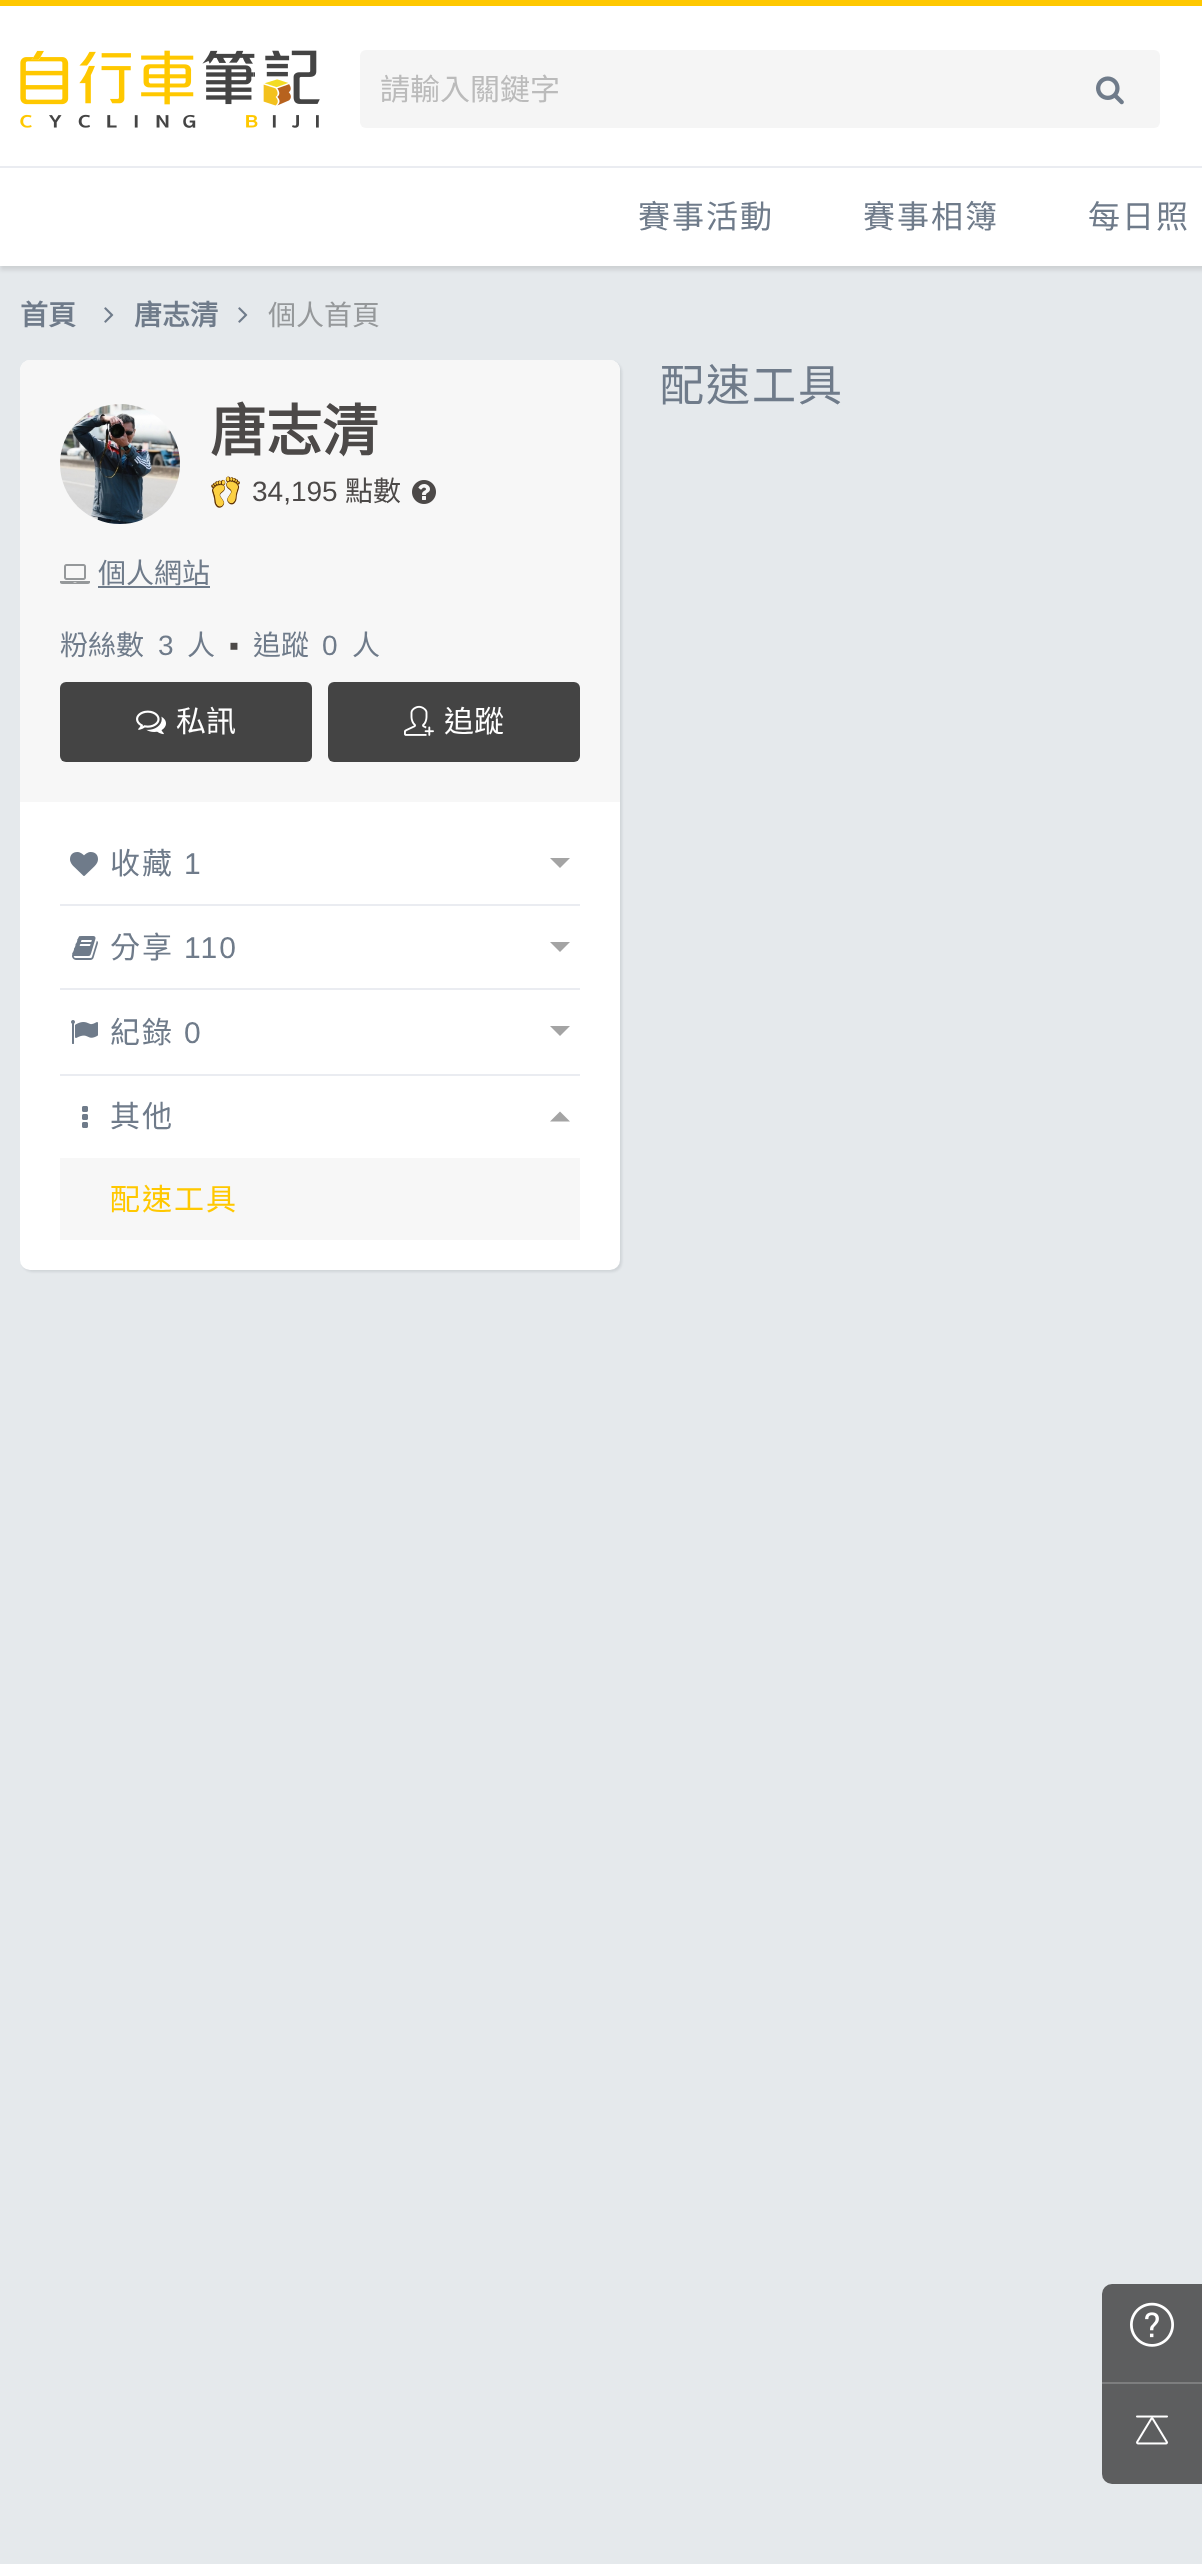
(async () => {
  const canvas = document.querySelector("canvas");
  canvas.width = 1202;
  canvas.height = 2564;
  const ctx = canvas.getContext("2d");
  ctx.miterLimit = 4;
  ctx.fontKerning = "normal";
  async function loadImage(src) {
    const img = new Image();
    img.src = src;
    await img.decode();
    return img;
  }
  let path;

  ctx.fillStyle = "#e5e9ec";
  ctx.fillRect(0, 0, 1202, 2564);
  ctx.fillStyle = "#ffc800";
  ctx.fillRect(0, 0, 1202, 6);
  ctx.fillStyle = "rgba(0, 0, 0, 0.1)";
  ctx.filter = "blur(2px)";
  ctx.beginPath();
  ctx.rect(0, 10, 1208, 260);
  ctx.fill();
  ctx.filter = "none";
  ctx.fillStyle = "#ffffff";
  ctx.fillRect(0, 6, 1202, 260);
  ctx.fillStyle = "#eaecf1";
  ctx.fillRect(0, 166, 1202, 2);
  ctx.drawImage(await loadImage("img/1.png"), 20, 50, 300, 78);
  ctx.fillStyle = "#f5f5f5";
  ctx.beginPath();
  ctx.roundRect(360, 50, 800, 78, 6);
  ctx.fill();
  ctx.drawImage(await loadImage("img/2.png"), 1096, 76, 28, 29);
  ctx.drawImage(await loadImage("img/3.png"), 104, 307, 10, 16);
  ctx.drawImage(await loadImage("img/3.png"), 238, 307, 10, 16);
  ctx.fillStyle = "rgba(34, 38, 46, 0.1)";
  ctx.filter = "blur(1px)";
  ctx.beginPath();
  ctx.roundRect(22, 362, 600, 910, 10);
  ctx.fill();
  ctx.filter = "none";
  ctx.fillStyle = "#ffffff";
  ctx.beginPath();
  ctx.roundRect(20, 360, 600, 910, 10);
  ctx.fill();
  ctx.fillStyle = "#f7f7f7";
  ctx.beginPath();
  ctx.roundRect(20, 360, 600, 442, [10, 10, 0, 0]);
  ctx.fill();
  ctx.drawImage(await loadImage("img/4.png"), 60, 404, 120, 120);
  ctx.drawImage(await loadImage("img/5.png"), 211, 476, 29, 32);
  ctx.drawImage(await loadImage("img/6.png"), 412, 480, 24, 24);
  ctx.drawImage(await loadImage("img/7.png"), 60, 564, 30, 20);
  ctx.fillStyle = "#6f7b8a";
  ctx.fillRect(98, 586, 112, 2);
  ctx.fillStyle = "#444444";
  ctx.beginPath();
  ctx.roundRect(60, 682, 252, 80, 6);
  ctx.fill();
  ctx.drawImage(await loadImage("img/8.png"), 136, 710, 30, 25);
  ctx.beginPath();
  ctx.roundRect(328, 682, 252, 80, 6);
  ctx.fill();
  ctx.drawImage(await loadImage("img/9.png"), 404, 705, 30, 31);
  ctx.drawImage(await loadImage("img/10.png"), 70, 852, 28, 24);
  ctx.fillStyle = "#a4a4a4";
  path = new Path2D("M550 858H570L560 868Z");
  ctx.fill(path);
  ctx.fillStyle = "#eaecf1";
  ctx.fillRect(60, 904, 520, 2);
  ctx.drawImage(await loadImage("img/11.png"), 72, 936, 26, 24);
  ctx.fillStyle = "#a4a4a4";
  path = new Path2D("M550 942H570L560 952Z");
  ctx.fill(path);
  ctx.fillStyle = "#eaecf1";
  ctx.fillRect(60, 988, 520, 2);
  ctx.drawImage(await loadImage("img/12.png"), 71, 1020, 27, 24);
  ctx.fillStyle = "#a4a4a4";
  path = new Path2D("M550 1026H570L560 1036Z");
  ctx.fill(path);
  ctx.fillStyle = "#eaecf1";
  ctx.fillRect(60, 1074, 520, 2);
  ctx.drawImage(await loadImage("img/13.png"), 82, 1106, 6, 22);
  ctx.fillStyle = "#a4a4a4";
  path = new Path2D("M570 1121.5H550L560 1111.5Z");
  ctx.fill(path);
  ctx.fillStyle = "#f7f7f7";
  ctx.fillRect(60, 1158, 520, 82);
  ctx.fillStyle = "#5d5e5f";
  ctx.beginPath();
  ctx.roundRect(1102, 2284, 100, 200, [10, 0, 0, 10]);
  ctx.fill();
  ctx.fillStyle = "#7d7e7f";
  ctx.fillRect(1102, 2382, 100, 2);
  ctx.drawImage(await loadImage("img/14.png"), 1130, 2302, 44, 45);
  ctx.drawImage(await loadImage("img/15.png"), 1136, 2415, 32, 30);
  ctx.font = "30px Noto Sans CJK TC";
  ctx.fillStyle = "#bbbbbb";
  ctx.fillText("請輸入關鍵字", 380, 100);
  ctx.letterSpacing = "2px";
  ctx.font = "32px Noto Sans CJK TC";
  ctx.fillStyle = "#6f7b8a";
  for (const [text, x, y] of [
    ["賽事活動", 638, 228],
    ["賽事相簿", 863, 228],
    ["每日照", 1088, 228],
  ]) {
    ctx.fillText(text, x, y);
  }
  ctx.letterSpacing = "0px";
  ctx.font = "bold 28px Noto Sans CJK TC";
  ctx.fillText("首頁", 20, 325);
  ctx.fillText("唐志清", 134, 325);
  ctx.font = "28px Noto Sans CJK TC";
  ctx.fillStyle = "#95989a";
  ctx.fillText("個人首頁", 268, 325);
  ctx.letterSpacing = "2px";
  ctx.font = "44px Noto Sans CJK TC";
  ctx.fillStyle = "#6f7b8a";
  ctx.fillText("配速工具", 660, 401);
  ctx.letterSpacing = "0px";
  ctx.font = "bold 56px Noto Sans CJK TC";
  ctx.fillStyle = "#4c4948";
  ctx.fillText("唐志清", 210, 451);
  ctx.font = "28px Liberation Sans";
  ctx.fillText("34,195", 252, 501);
  ctx.font = "28px Noto Sans CJK TC";
  ctx.fillText("點數", 345, 501);
  ctx.fillStyle = "#6f7b8a";
  ctx.fillText("個人網站", 98, 583);
  ctx.fillText("粉絲數", 60, 655);
  ctx.font = "28px Liberation Sans";
  ctx.fillText("3", 158, 655);
  ctx.font = "28px Noto Sans CJK TC";
  ctx.fillText("人", 187, 655);
  ctx.font = "28px Liberation Sans";
  ctx.fillStyle = "#4c4948";
  ctx.fillText("▪", 229, 655);
  ctx.font = "28px Noto Sans CJK TC";
  ctx.fillStyle = "#6f7b8a";
  ctx.fillText("追蹤", 253, 655);
  ctx.font = "28px Liberation Sans";
  ctx.fillText("0", 322, 655);
  ctx.font = "28px Noto Sans CJK TC";
  ctx.fillText("人", 352, 655);
  ctx.font = "30px Noto Sans CJK TC";
  ctx.fillStyle = "#ffffff";
  ctx.fillText("私訊", 176, 732);
  ctx.fillText("追蹤", 444, 732);
  ctx.letterSpacing = "2px";
  ctx.fillStyle = "#6f7b8a";
  ctx.fillText("收藏", 110, 874);
  ctx.font = "30px Liberation Sans";
  ctx.fillText("1", 184, 874);
  ctx.font = "30px Noto Sans CJK TC";
  ctx.fillText("分享", 110, 958);
  ctx.font = "30px Liberation Sans";
  ctx.fillText("110", 184, 958);
  ctx.font = "30px Noto Sans CJK TC";
  ctx.fillText("紀錄", 110, 1043);
  ctx.font = "30px Liberation Sans";
  ctx.fillText("0", 184, 1043);
  ctx.font = "30px Noto Sans CJK TC";
  ctx.fillText("其他", 110, 1127);
  ctx.fillStyle = "#ffc800";
  ctx.fillText("配速工具", 110, 1210);
})();
